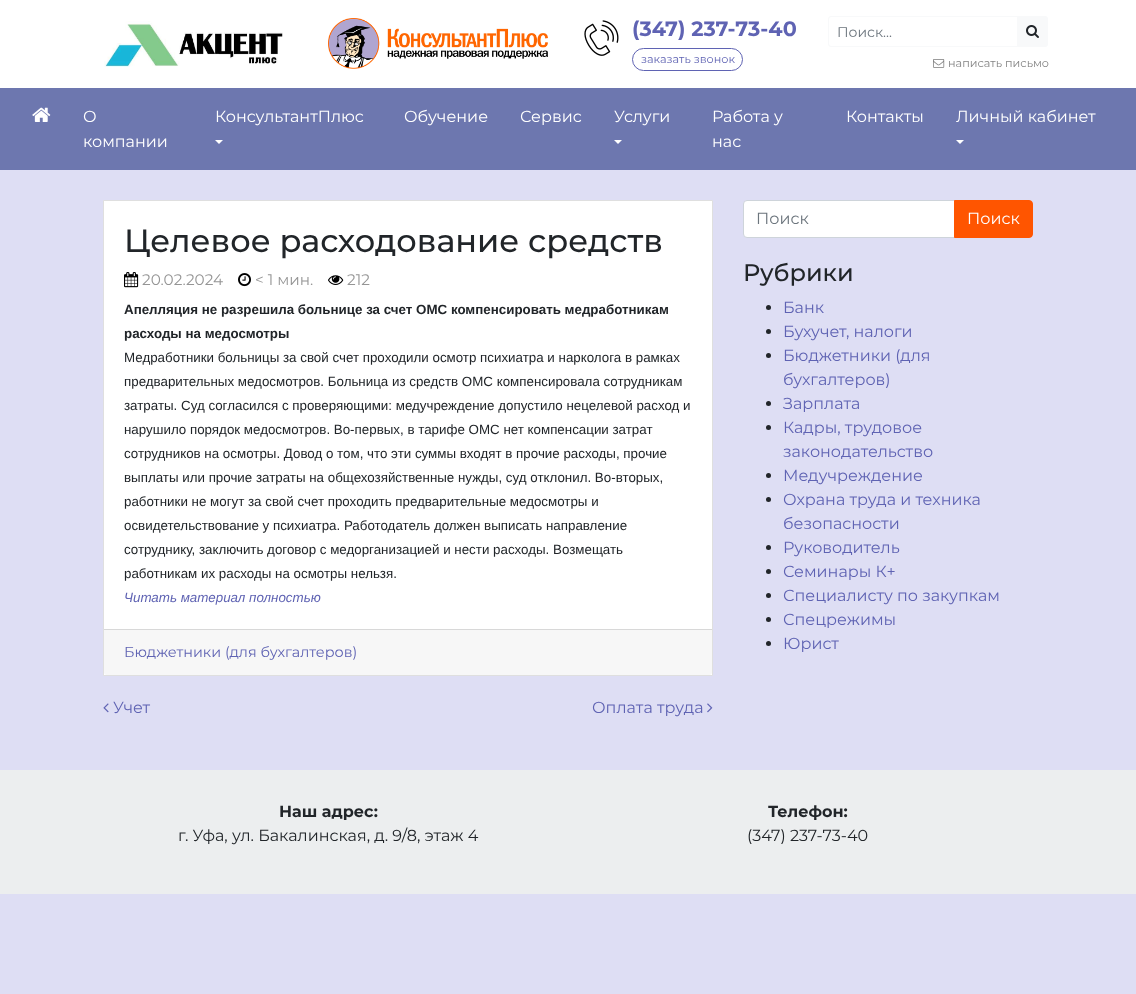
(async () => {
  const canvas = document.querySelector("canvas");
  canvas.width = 1136;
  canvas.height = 994;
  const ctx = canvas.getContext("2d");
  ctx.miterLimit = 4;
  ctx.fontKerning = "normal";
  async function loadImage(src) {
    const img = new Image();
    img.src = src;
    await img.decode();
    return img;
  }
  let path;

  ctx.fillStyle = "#dedef4";
  ctx.fillRect(0, 0, 1136, 994);
  ctx.fillStyle = "#ffffff";
  ctx.fillRect(0, 0, 1136, 88);
  ctx.drawImage(await loadImage("img/1.png"), 104, 21, 179, 46);
  ctx.drawImage(await loadImage("img/2.png"), 328, 18, 220, 51);
  ctx.drawImage(await loadImage("img/3.png"), 584, 20, 35, 36);
  ctx.beginPath();
  ctx.roundRect(632.5, 48.5, 110, 22, 11);
  ctx.strokeStyle = "#5f63b3";
  ctx.stroke();
  ctx.beginPath();
  ctx.roundRect(828.5, 16.5, 189, 30, [2.5, 0, 0, 2.5]);
  ctx.strokeStyle = "#f8f9fa";
  ctx.stroke();
  ctx.fillStyle = "#f8f9fa";
  ctx.beginPath();
  ctx.roundRect(1017, 16, 31, 31, [0, 3, 3, 0]);
  ctx.fill();
  ctx.drawImage(await loadImage("img/4.png"), 1026, 25, 13, 13);
  ctx.drawImage(await loadImage("img/5.png"), 933, 59, 12, 9);
  ctx.fillStyle = "#6d77af";
  ctx.fillRect(0, 88, 1136, 82);
  ctx.drawImage(await loadImage("img/6.png"), 32, 107, 19, 15);
  ctx.fillStyle = "#ffffff";
  path = new Path2D("M215 140H223L219 144Z");
  ctx.fill(path);
  path = new Path2D("M614 140H622L618 144Z");
  ctx.fill(path);
  path = new Path2D("M956 140H964L960 144Z");
  ctx.fill(path);
  ctx.beginPath();
  ctx.rect(103.5, 200.5, 609, 475);
  ctx.fill();
  ctx.strokeStyle = "#dfdfdf";
  ctx.stroke();
  ctx.drawImage(await loadImage("img/7.png"), 124, 272, 15, 16);
  ctx.drawImage(await loadImage("img/8.png"), 238, 273, 13, 14);
  ctx.drawImage(await loadImage("img/9.png"), 328, 275, 16, 10);
  ctx.fillStyle = "#f7f7f7";
  ctx.beginPath();
  ctx.roundRect(104, 629, 608, 46, [0, 0, 3, 3]);
  ctx.fill();
  ctx.fillStyle = "#d8d8d8";
  ctx.fillRect(104, 629, 608, 1);
  ctx.drawImage(await loadImage("img/10.png"), 103, 703, 6, 10);
  ctx.drawImage(await loadImage("img/11.png"), 707, 703, 6, 10);
  ctx.fillStyle = "#ffffff";
  ctx.beginPath();
  ctx.roundRect(743.5, 200.5, 211, 37, [3.5, 0, 0, 3.5]);
  ctx.fill();
  ctx.strokeStyle = "#ced4da";
  ctx.stroke();
  ctx.fillStyle = "#ff5500";
  ctx.beginPath();
  ctx.roundRect(954.5, 200.5, 78, 37, [0, 3.5, 3.5, 0]);
  ctx.fill();
  ctx.strokeStyle = "#ff5500";
  ctx.stroke();
  ctx.fillStyle = "#212529";
  ctx.beginPath();
  ctx.arc(768.5, 307.5, 2.5, 0, Math.PI * 2);
  ctx.fill();
  ctx.beginPath();
  ctx.arc(768.5, 331.5, 2.5, 0, Math.PI * 2);
  ctx.fill();
  ctx.beginPath();
  ctx.arc(768.5, 355.5, 2.5, 0, Math.PI * 2);
  ctx.fill();
  ctx.beginPath();
  ctx.arc(768.5, 403.5, 2.5, 0, Math.PI * 2);
  ctx.fill();
  ctx.beginPath();
  ctx.arc(768.5, 427.5, 2.5, 0, Math.PI * 2);
  ctx.fill();
  ctx.beginPath();
  ctx.arc(768.5, 475.5, 2.5, 0, Math.PI * 2);
  ctx.fill();
  ctx.beginPath();
  ctx.arc(768.5, 499.5, 2.5, 0, Math.PI * 2);
  ctx.fill();
  ctx.beginPath();
  ctx.arc(768.5, 547.5, 2.5, 0, Math.PI * 2);
  ctx.fill();
  ctx.beginPath();
  ctx.arc(768.5, 571.5, 2.5, 0, Math.PI * 2);
  ctx.fill();
  ctx.beginPath();
  ctx.arc(768.5, 595.5, 2.5, 0, Math.PI * 2);
  ctx.fill();
  ctx.beginPath();
  ctx.arc(768.5, 619.5, 2.5, 0, Math.PI * 2);
  ctx.fill();
  ctx.beginPath();
  ctx.arc(768.5, 643.5, 2.5, 0, Math.PI * 2);
  ctx.fill();
  ctx.fillStyle = "#eceeef";
  ctx.fillRect(0, 770, 1136, 124);
  ctx.font = "bold 20.75px Montserrat";
  ctx.fillStyle = "#5f63b3";
  ctx.fillText("(347) 237-73-40", 632, 36);
  ctx.font = "11.25px Montserrat";
  ctx.fillText("заказать звонок", 641, 63);
  ctx.font = "14px Montserrat";
  ctx.fillStyle = "#6c757d";
  ctx.fillText("Поиск...", 837, 37);
  ctx.font = "11.25px Montserrat";
  ctx.fillStyle = "#838383";
  ctx.fillText("написать письмо", 948, 67);
  ctx.font = "16px Montserrat";
  ctx.fillStyle = "#ffffff";
  for (const [text, x, y] of [
    ["О", 83, 122],
    ["компании", 83, 147],
    ["КонсультантПлюс", 215, 122],
    ["Обучение", 404, 122],
    ["Сервис", 520, 122],
    ["Услуги", 614, 122],
    ["Работа у", 712, 122],
    ["нас", 712, 147],
    ["Контакты", 846, 122],
    ["Личный кабинет", 956, 122],
  ]) {
    ctx.fillText(text, x, y);
  }
  ctx.font = "500 32px Montserrat";
  ctx.fillStyle = "#212529";
  ctx.fillText("Целевое расходование средств", 124, 252);
  ctx.font = "15.25px Montserrat";
  ctx.fillStyle = "#959595";
  for (const [text, x, y] of [
    ["20.02.2024", 142, 285],
    ["< 1 мин.", 255, 285],
    ["212", 347, 285],
  ]) {
    ctx.fillText(text, x, y);
  }
  ctx.font = "bold 13.35px Liberation Sans";
  ctx.fillStyle = "#212529";
  ctx.fillText("Апелляция не разрешила больнице за счет ОМС компенсировать медработникам", 124, 314);
  ctx.fillText("расходы на медосмотры", 124, 338);
  ctx.font = "13.35px Liberation Sans";
  for (const [text, x, y] of [
    ["Медработники больницы за свой счет проходили осмотр психиатра и нарколога в рамках", 124, 362],
    ["предварительных медосмотров. Больница из средств ОМС компенсировала сотрудникам", 124, 386],
    ["затраты. Суд согласился с проверяющими: медучреждение допустило нецелевой расход и", 124, 410],
    ["нарушило порядок медосмотров. Во-первых, в тарифе ОМС нет компенсации затрат", 124, 434],
    ["сотрудников на осмотры. Довод о том, что эти суммы входят в прочие расходы, прочие", 124, 458],
    ["выплаты или прочие затраты на общехозяйственные нужды, суд отклонил. Во-вторых,", 124, 482],
    ["работники не могут за свой счет проходить предварительные медосмотры и", 124, 506],
    ["освидетельствование у психиатра. Работодатель должен выписать направление", 124, 530],
    ["сотруднику, заключить договор с медорганизацией и нести расходы. Возмещать", 124, 554],
    ["работникам их расходы на осмотры нельзя.", 124, 578],
  ]) {
    ctx.fillText(text, x, y);
  }
  ctx.font = "italic 13.35px Liberation Sans";
  ctx.fillStyle = "#5f63b3";
  ctx.fillText("Читать материал полностью", 124, 602);
  ctx.font = "14.4px Montserrat";
  ctx.fillText("Бюджетники (для бухгалтеров)", 124, 657);
  ctx.font = "16px Montserrat";
  ctx.fillText("Учет", 113, 713);
  ctx.fillText("Оплата труда", 592, 713);
  ctx.fillStyle = "#6c757d";
  ctx.fillText("Поиск", 756, 224);
  ctx.fillStyle = "#ffffff";
  ctx.fillText("Поиск", 967, 224);
  ctx.font = "500 24px Montserrat";
  ctx.fillStyle = "#212529";
  ctx.fillText("Рубрики", 743, 281);
  ctx.font = "16px Montserrat";
  ctx.fillStyle = "#5f63b3";
  for (const [text, x, y] of [
    ["Банк", 783, 313],
    ["Бухучет, налоги", 783, 337],
    ["Бюджетники (для", 783, 361],
    ["бухгалтеров)", 783, 385],
    ["Зарплата", 783, 409],
    ["Кадры, трудовое", 783, 433],
    ["законодательство", 783, 457],
    ["Медучреждение", 783, 481],
    ["Охрана труда и техника", 783, 505],
    ["безопасности", 783, 529],
    ["Руководитель", 783, 553],
    ["Семинары К+", 783, 577],
    ["Специалисту по закупкам", 783, 601],
    ["Спецрежимы", 783, 625],
    ["Юрист", 783, 649],
  ]) {
    ctx.fillText(text, x, y);
  }
  ctx.font = "bold 16px Montserrat";
  ctx.fillStyle = "#212529";
  ctx.fillText("Наш адрес:", 279, 817);
  ctx.font = "16px Montserrat";
  ctx.fillText("г. Уфа, ул. Бакалинская, д. 9/8, этаж 4", 178, 841);
  ctx.font = "bold 16px Montserrat";
  ctx.fillText("Телефон:", 768, 817);
  ctx.font = "16px Montserrat";
  ctx.fillText("(347) 237-73-40", 747, 841);
})();
